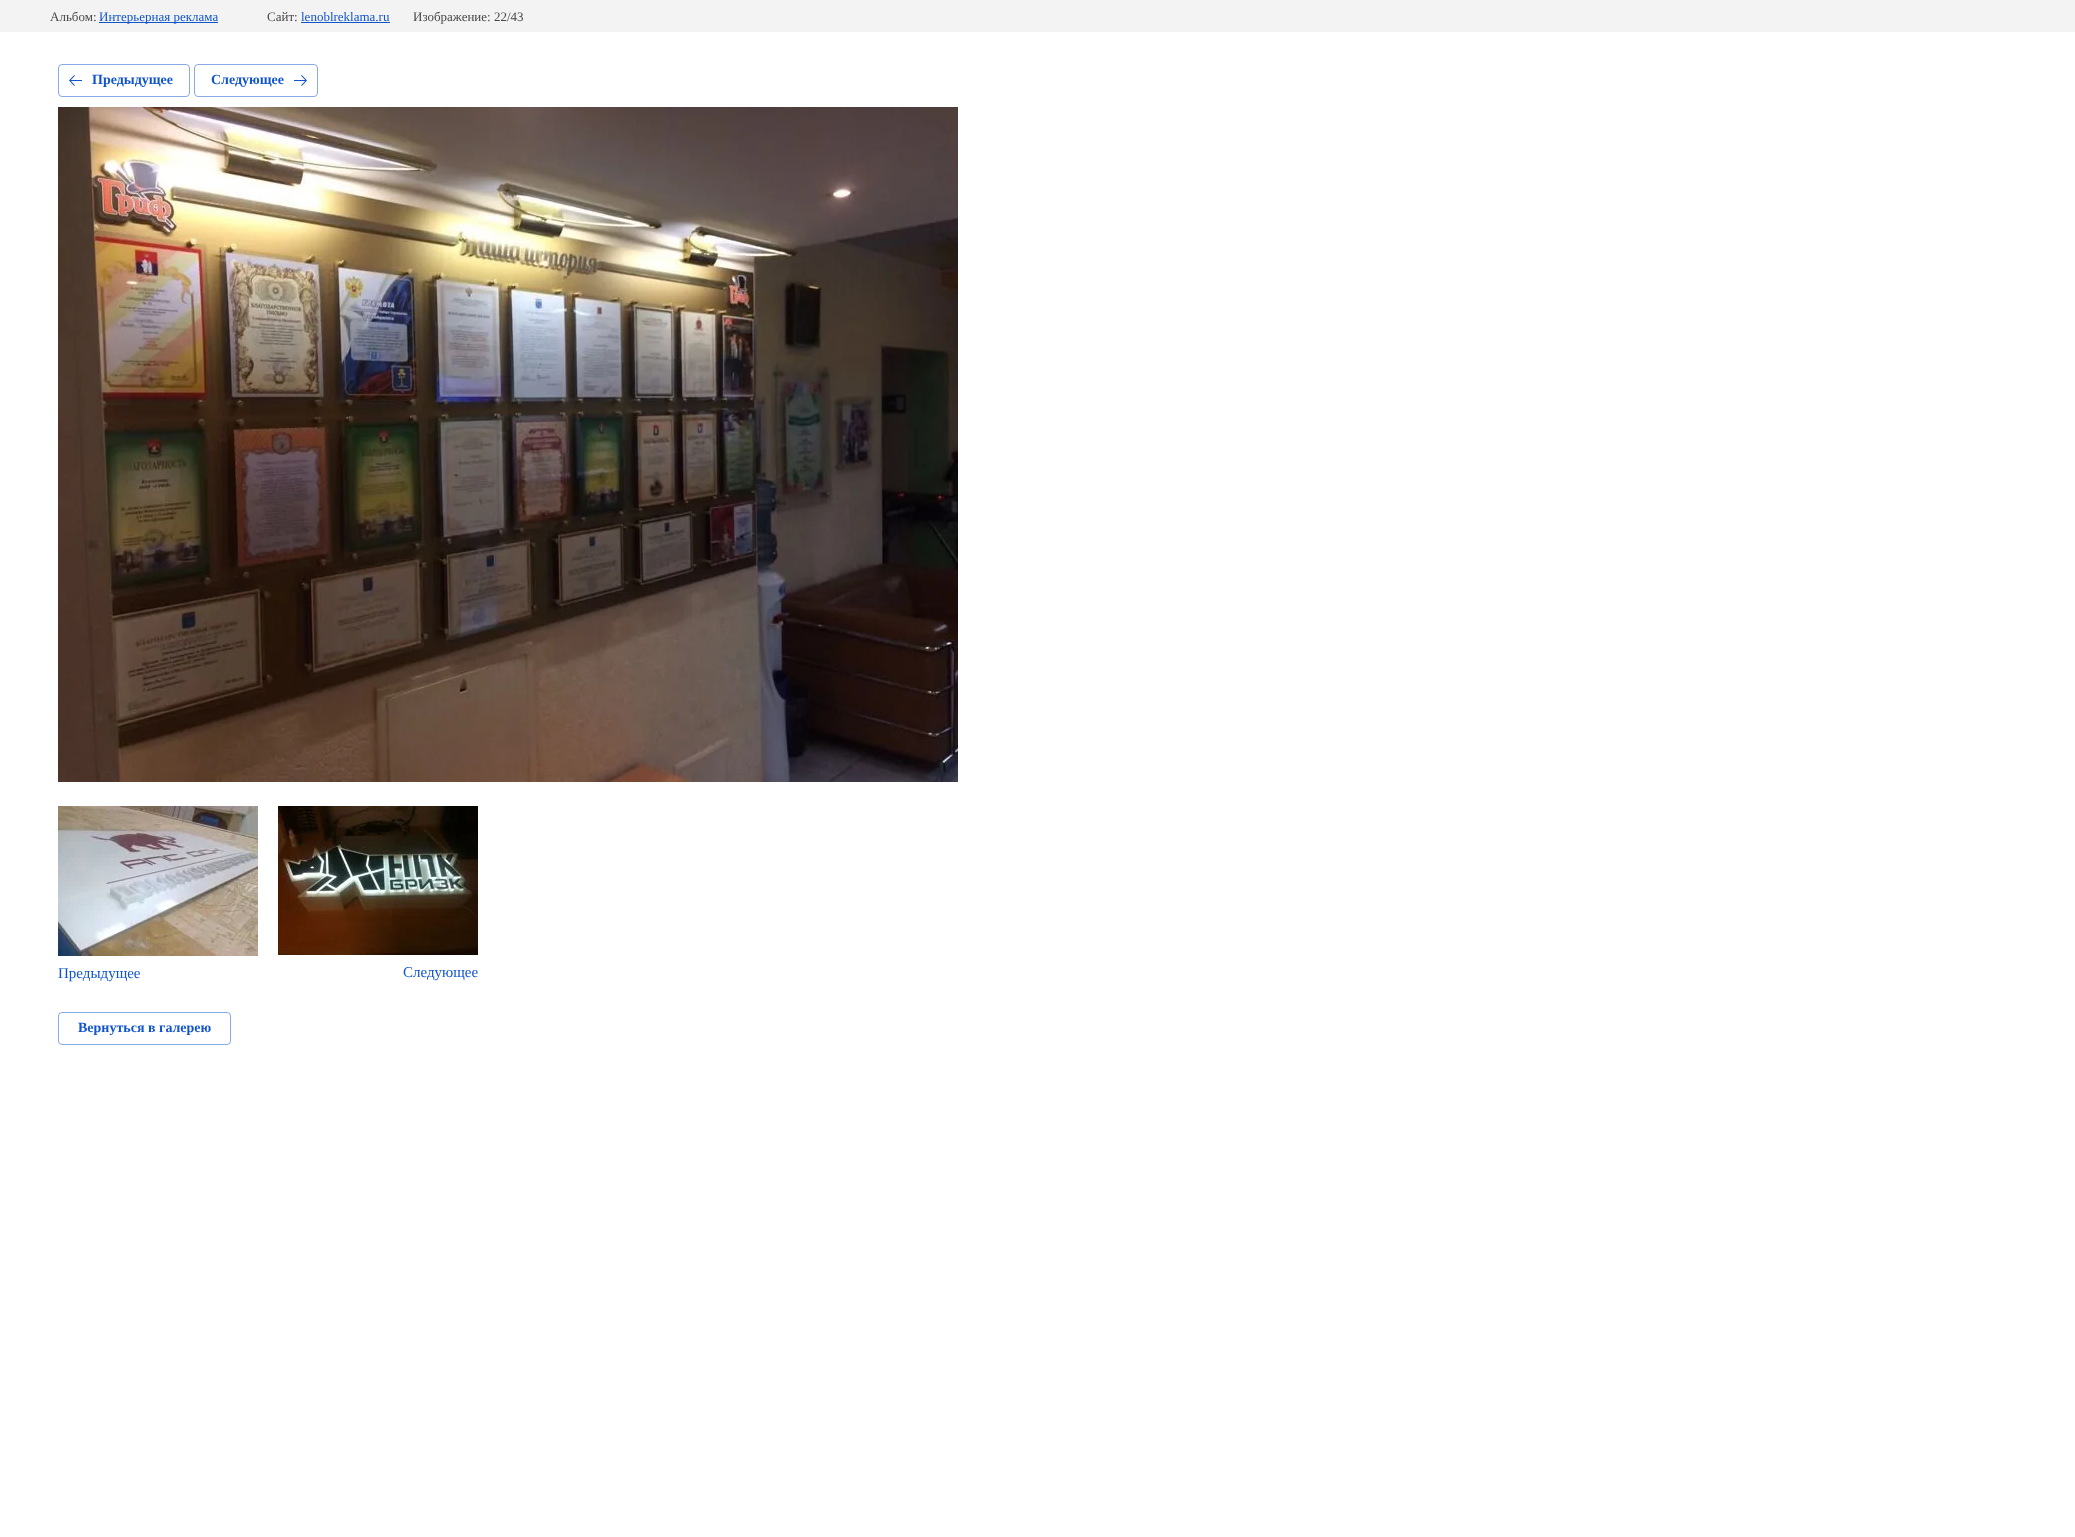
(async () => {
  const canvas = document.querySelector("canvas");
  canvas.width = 2075;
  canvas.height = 1537;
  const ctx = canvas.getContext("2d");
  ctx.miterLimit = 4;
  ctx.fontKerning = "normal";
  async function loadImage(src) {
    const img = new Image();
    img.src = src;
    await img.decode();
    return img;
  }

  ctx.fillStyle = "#ffffff";
  ctx.fillRect(0, 0, 2075, 1537);
  for (const [x, y, w, h, color] of [
    [0, 0, 2075, 32, "#f3f3f3"],
    [99, 22, 119, 1, "#1155cc"],
    [301, 22, 89, 1, "#1155cc"],
  ]) {
    ctx.fillStyle = color;
    ctx.fillRect(x, y, w, h);
  }
  ctx.beginPath();
  ctx.roundRect(58.5, 64.5, 131, 32, 3.5);
  ctx.strokeStyle = "#88aae6";
  ctx.stroke();
  ctx.drawImage(await loadImage("img/1.png"), 69, 75, 13, 11);
  ctx.beginPath();
  ctx.roundRect(194.5, 64.5, 123, 32, 3.5);
  ctx.stroke();
  ctx.drawImage(await loadImage("img/2.png"), 294, 75, 13, 11);
  ctx.drawImage(await loadImage("img/3.png"), 58, 107, 900, 675);
  ctx.drawImage(await loadImage("img/4.png"), 58, 806, 200, 150);
  ctx.drawImage(await loadImage("img/5.png"), 278, 806, 200, 149);
  ctx.beginPath();
  ctx.roundRect(58.5, 1012.5, 172, 32, 3.5);
  ctx.stroke();
  ctx.font = "13px Liberation Serif";
  ctx.fillStyle = "#484848";
  ctx.fillText("Альбом:", 50, 21);
  ctx.fillStyle = "#1155cc";
  ctx.fillText("Интерьерная реклама", 99, 21);
  ctx.fillStyle = "#484848";
  ctx.fillText("Сайт:", 267, 21);
  ctx.fillStyle = "#1155cc";
  ctx.fillText("lenoblreklama.ru", 301, 21);
  ctx.fillStyle = "#484848";
  ctx.fillText("Изображение: 22/43", 413, 21);
  ctx.font = "bold 14px Liberation Serif";
  ctx.fillStyle = "#1155cc";
  ctx.fillText("Предыдущее", 92, 84);
  ctx.fillText("Следующее", 211, 84);
  ctx.font = "15px Liberation Serif";
  ctx.fillText("Предыдущее", 58, 978);
  ctx.fillText("Следующее", 403, 977);
  ctx.font = "bold 14px Liberation Serif";
  ctx.fillText("Вернуться в галерею", 78, 1032);
})();
